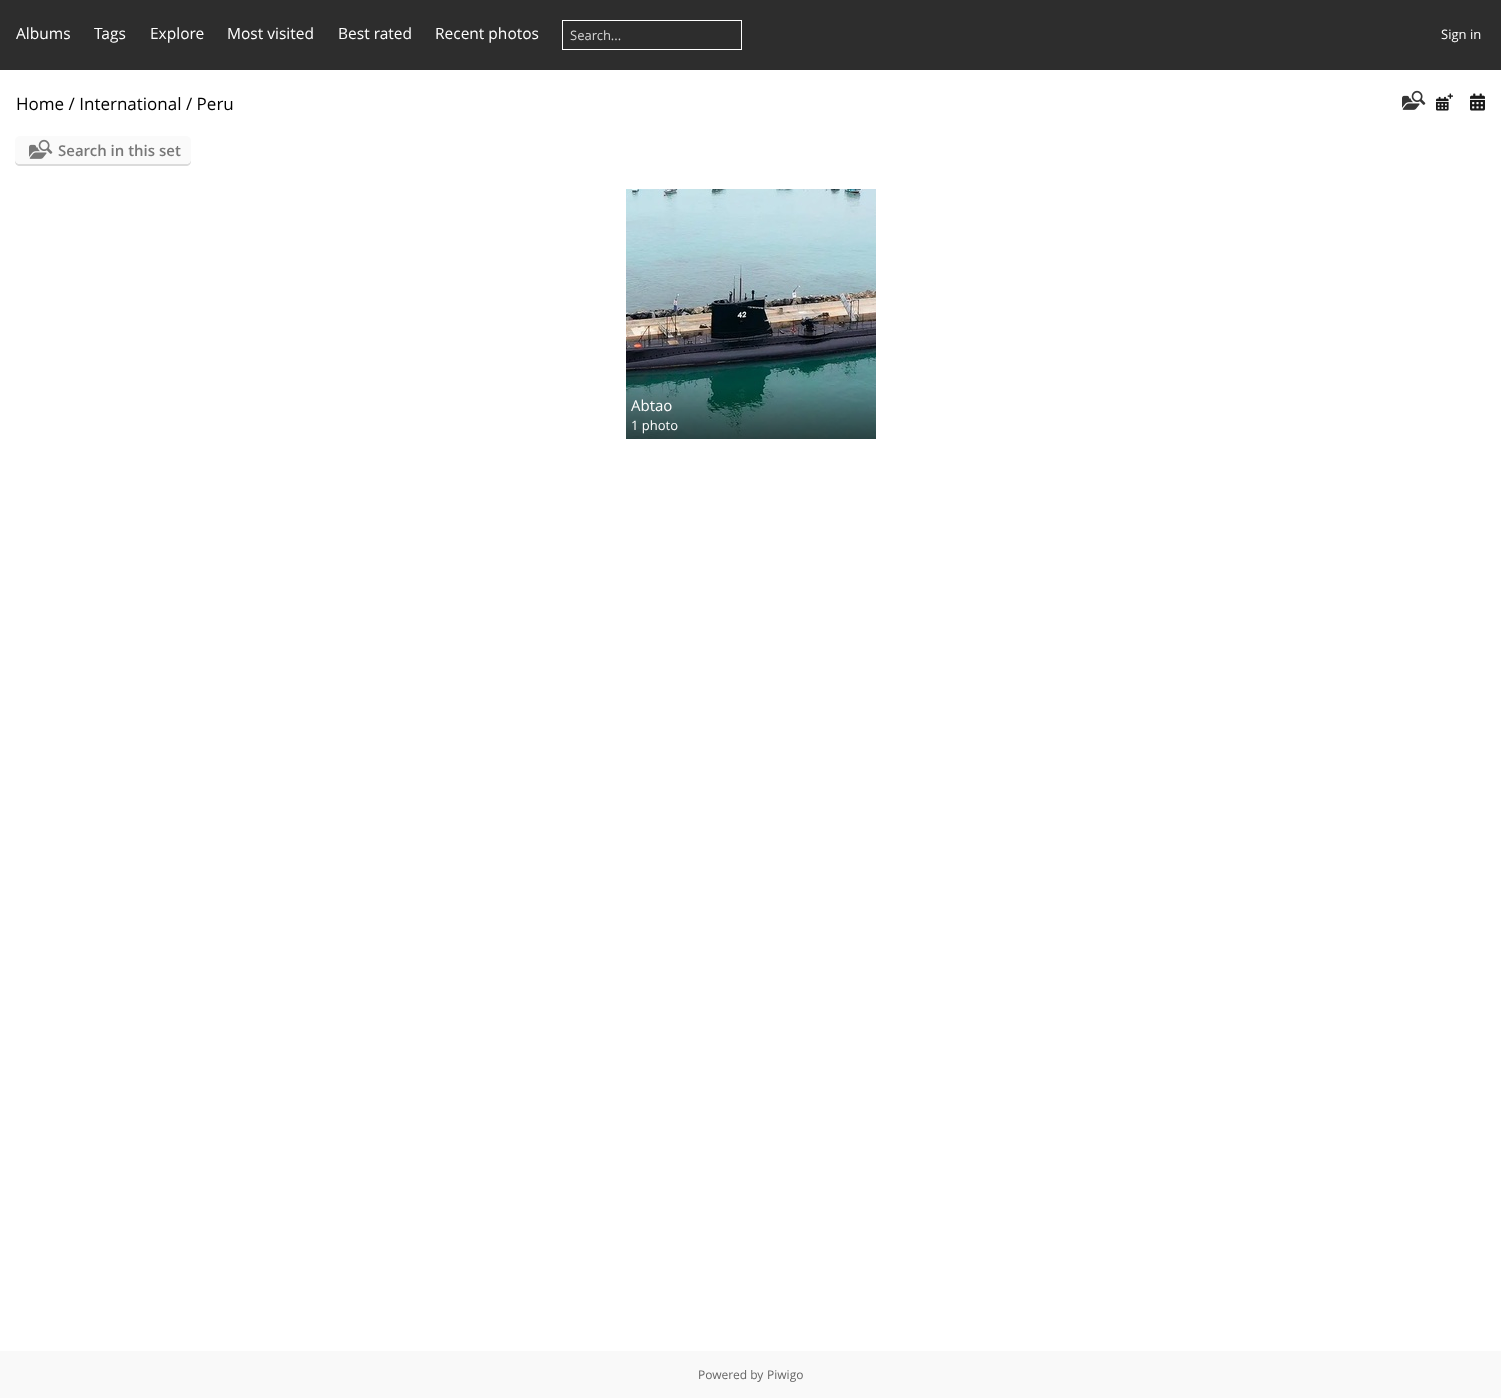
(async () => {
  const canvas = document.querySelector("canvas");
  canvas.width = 1501;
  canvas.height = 1398;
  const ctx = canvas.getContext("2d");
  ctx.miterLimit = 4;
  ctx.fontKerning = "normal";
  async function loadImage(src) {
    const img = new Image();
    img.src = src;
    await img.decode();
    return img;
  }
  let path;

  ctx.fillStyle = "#ffffff";
  ctx.fillRect(0, 0, 1501, 1398);
  ctx.fillStyle = "#2d2d2d";
  ctx.fillRect(0, 0, 1501, 70);
  ctx.strokeStyle = "#ffffff";
  ctx.strokeRect(562.5, 20.5, 179, 29);
  ctx.drawImage(await loadImage("img/1.png"), 1402, 90, 24, 20);
  ctx.drawImage(await loadImage("img/2.png"), 1436, 93, 17, 18);
  ctx.drawImage(await loadImage("img/3.png"), 1470, 93, 15, 18);
  ctx.fillStyle = "#dbdbdb";
  path = new Path2D("M15 159V161C15 164 17 166 20 166H186C189 166 191 164 191 161V159C191 162 189 164 186 164H20C17 164 15 162 15 159Z");
  ctx.fill(path);
  ctx.fillStyle = "#fafafa";
  ctx.beginPath();
  ctx.roundRect(15, 136, 176, 28, 5);
  ctx.fill();
  ctx.drawImage(await loadImage("img/4.png"), 29, 139, 24, 20);
  ctx.drawImage(await loadImage("img/5.png"), 626, 189, 250, 250);
  ctx.fillStyle = "#f9f9f9";
  ctx.fillRect(0, 1351, 1501, 47);
  ctx.font = "15.5px Open Sans";
  ctx.fillStyle = "#ffffff";
  for (const [text, x, y] of [
    ["Albums", 16, 39],
    ["Tags", 94, 39],
    ["Explore", 150, 39],
    ["Most visited", 227, 39],
    ["Best rated", 338, 39],
    ["Recent photos", 435, 39],
  ]) {
    ctx.fillText(text, x, y);
  }
  ctx.font = "13px Open Sans";
  ctx.fillStyle = "#d6d6d6";
  ctx.fillText("Search...", 570, 40);
  ctx.fillStyle = "#ffffff";
  ctx.fillText("Sign in", 1441, 39);
  ctx.font = "17px Open Sans";
  ctx.fillStyle = "#000000";
  ctx.fillText("Home / International / Peru", 16, 110);
  ctx.font = "600 15px Open Sans";
  ctx.fillStyle = "#777777";
  ctx.fillText("Search in this set", 58, 156);
  ctx.font = "15px Open Sans";
  ctx.fillStyle = "#ffffff";
  ctx.fillText("Abtao", 631, 411);
  ctx.font = "13px Open Sans";
  ctx.fillText("1 photo", 631, 430);
  ctx.font = "12px Open Sans";
  ctx.fillStyle = "#666666";
  ctx.fillText("Powered by", 698, 1379);
  ctx.fillText("Piwigo", 767, 1379);
})();
